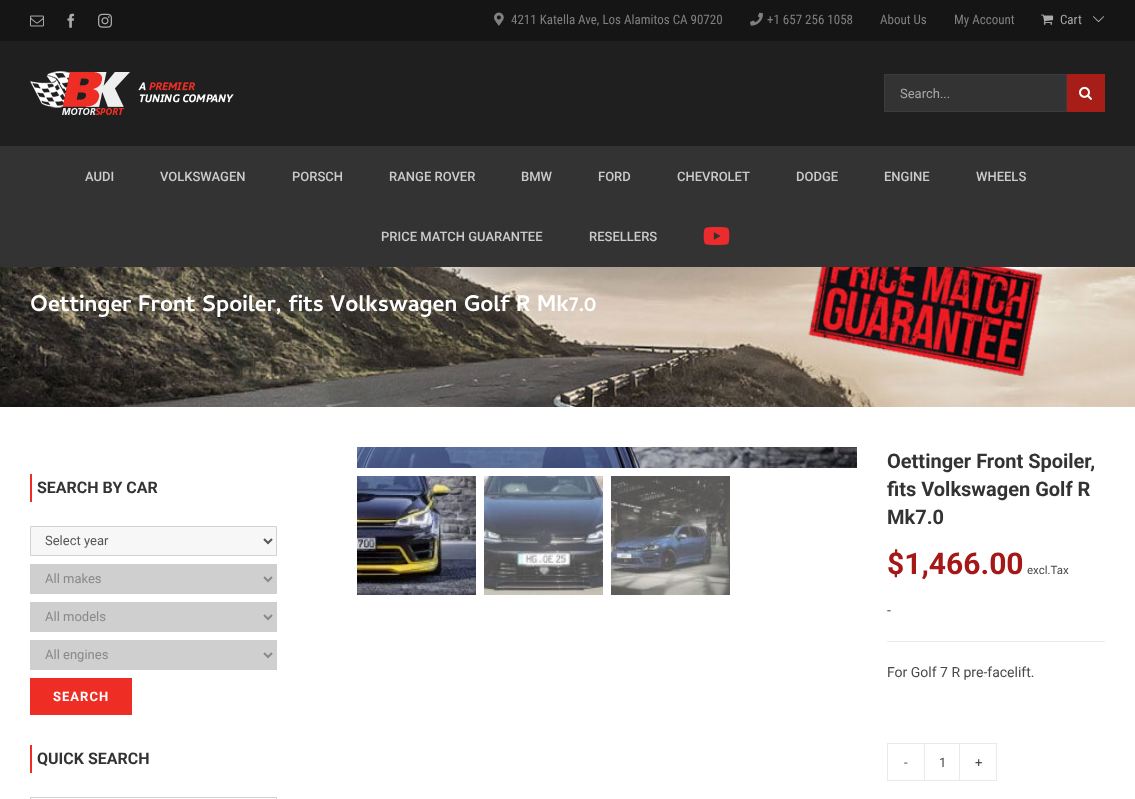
(async () => {
  const canvas = document.querySelector("canvas");
  canvas.width = 1135;
  canvas.height = 799;
  const ctx = canvas.getContext("2d");
  ctx.miterLimit = 4;
  ctx.fontKerning = "normal";
  async function loadImage(src) {
    const img = new Image();
    img.src = src;
    await img.decode();
    return img;
  }
  let path;

  ctx.fillStyle = "#ffffff";
  ctx.fillRect(0, 0, 1135, 799);
  ctx.fillStyle = "#151515";
  ctx.fillRect(0, 0, 1135, 41);
  ctx.drawImage(await loadImage("img/1.png"), 30, 15, 14, 12);
  ctx.drawImage(await loadImage("img/2.png"), 67, 13, 8, 15);
  ctx.drawImage(await loadImage("img/3.png"), 98, 13, 14, 15);
  ctx.drawImage(await loadImage("img/4.png"), 494, 12, 10, 14);
  ctx.drawImage(await loadImage("img/5.png"), 750, 12, 13, 14);
  ctx.drawImage(await loadImage("img/6.png"), 1041, 14, 13, 11);
  ctx.drawImage(await loadImage("img/7.png"), 1093, 16, 11, 7);
  ctx.fillStyle = "#1f1f1f";
  ctx.fillRect(0, 41, 1135, 105);
  ctx.drawImage(await loadImage("img/8.png"), 30, 71, 204, 44);
  ctx.fillStyle = "#333333";
  ctx.beginPath();
  ctx.rect(884.5, 74.5, 182, 37);
  ctx.fill();
  ctx.strokeStyle = "#3c3c3c";
  ctx.stroke();
  ctx.fillStyle = "#a61e17";
  ctx.fillRect(1067, 74, 38, 38);
  ctx.drawImage(await loadImage("img/9.png"), 1079, 86, 13, 14);
  ctx.fillStyle = "#333333";
  ctx.fillRect(0, 146, 1135, 121);
  ctx.drawImage(await loadImage("img/10.png"), 703, 227, 27, 18);
  ctx.drawImage(await loadImage("img/11.png"), 0, 267, 1135, 140);
  ctx.fillStyle = "#ee2e24";
  ctx.fillRect(30, 474, 2, 28);
  ctx.fillStyle = "#f7f7f7";
  ctx.beginPath();
  ctx.rect(30.5, 526.5, 246, 29);
  ctx.fill();
  ctx.strokeStyle = "#d2d2d2";
  ctx.stroke();
  path = new Path2D("M264 539L268 543L272 539");
  ctx.strokeStyle = "#575757";
  ctx.lineWidth = 2;
  ctx.stroke(path);
  ctx.fillStyle = "#cfcfcf";
  ctx.fillRect(30, 564, 247, 30);
  path = new Path2D("M264 577L268 581L272 577");
  ctx.strokeStyle = "#898989";
  ctx.stroke(path);
  ctx.fillRect(30, 602, 247, 30);
  path = new Path2D("M264 615L268 619L272 615");
  ctx.stroke(path);
  ctx.fillRect(30, 640, 247, 30);
  path = new Path2D("M264 653L268 657L272 653");
  ctx.stroke(path);
  ctx.fillStyle = "#ee2e24";
  ctx.fillRect(30, 678, 102, 37);
  ctx.fillRect(30, 745, 2, 28);
  ctx.strokeStyle = "#d2d2d2";
  ctx.lineWidth = 1;
  ctx.strokeRect(30.5, 797.5, 246, 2);
  ctx.drawImage(await loadImage("img/12.png"), 357, 447, 500, 21);
  ctx.drawImage(await loadImage("img/13.png"), 357, 476, 119, 119);
  ctx.drawImage(await loadImage("img/14.png"), 484, 476, 119, 119);
  ctx.drawImage(await loadImage("img/15.png"), 611, 476, 119, 119);
  ctx.fillStyle = "#eaeaea";
  ctx.fillRect(887, 641, 218, 1);
  ctx.strokeStyle = "#eaeaea";
  ctx.strokeRect(887.5, 743.5, 109, 37);
  ctx.fillRect(959, 744, 1, 36);
  ctx.fillRect(924, 744, 1, 36);
  ctx.font = "13px Roboto Condensed";
  ctx.fillStyle = "#808080";
  for (const [text, x, y] of [
    ["4211 Katella Ave, Los Alamitos CA 90720", 511, 24],
    ["+1 657 256 1058", 767, 24],
    ["About Us", 880, 24],
    ["My Account", 954, 24],
  ]) {
    ctx.fillText(text, x, y);
  }
  ctx.fillStyle = "#aaa9a9";
  ctx.fillText("Cart", 1060, 24);
  ctx.font = "13px Roboto";
  ctx.fillText("Search...", 900, 98);
  ctx.font = "500 13px Roboto";
  ctx.fillStyle = "#cbcbcb";
  for (const [text, x, y] of [
    ["AUDI", 85, 181],
    ["VOLKSWAGEN", 160, 181],
    ["PORSCH", 292, 181],
    ["RANGE ROVER", 389, 181],
    ["BMW", 521, 181],
    ["FORD", 598, 181],
    ["CHEVROLET", 677, 181],
    ["DODGE", 796, 181],
    ["ENGINE", 884, 181],
    ["WHEELS", 976, 181],
    ["PRICE MATCH GUARANTEE", 381, 241],
    ["RESELLERS", 589, 241],
  ]) {
    ctx.fillText(text, x, y);
  }
  ctx.font = "bold 23px Cambay";
  ctx.fillStyle = "#ffffff";
  ctx.fillText("Oettinger Front Spoiler, fits Volkswagen Golf R Mk7.0", 30, 311);
  ctx.font = "bold 16px Roboto";
  ctx.fillStyle = "#333333";
  ctx.fillText("SEARCH BY CAR", 37, 493);
  ctx.font = "13px Roboto";
  ctx.fillStyle = "#575757";
  ctx.fillText("Select year", 45, 545);
  ctx.fillStyle = "#898989";
  for (const [text, x, y] of [
    ["All makes", 45, 583],
    ["All models", 45, 621],
    ["All engines", 45, 659],
  ]) {
    ctx.fillText(text, x, y);
  }
  ctx.letterSpacing = "1px";
  ctx.font = "bold 13px Roboto";
  ctx.fillStyle = "#ffffff";
  ctx.fillText("SEARCH", 53, 701);
  ctx.letterSpacing = "0px";
  ctx.font = "bold 16px Roboto";
  ctx.fillStyle = "#333333";
  ctx.fillText("QUICK SEARCH", 37, 764);
  ctx.font = "bold 20px Roboto";
  for (const [text, x, y] of [
    ["Oettinger Front Spoiler,", 887, 468],
    ["fits Volkswagen Golf R", 887, 496],
    ["Mk7.0", 887, 524],
  ]) {
    ctx.fillText(text, x, y);
  }
  ctx.font = "bold 30px Roboto";
  ctx.fillStyle = "#a51818";
  ctx.fillText("$1,466.00", 887, 574);
  ctx.font = "11.5px Roboto";
  ctx.fillStyle = "#494949";
  ctx.fillText("excl.Tax", 1027, 574);
  ctx.font = "14px Roboto";
  ctx.fillText("-", 887, 615);
  ctx.fillText("For Golf 7 R pre-facelift.", 887, 677);
  ctx.font = "13px Roboto";
  for (const [text, x, y] of [
    ["-", 904, 767],
    ["1", 939, 767],
    ["+", 975, 767],
  ]) {
    ctx.fillText(text, x, y);
  }
})();
